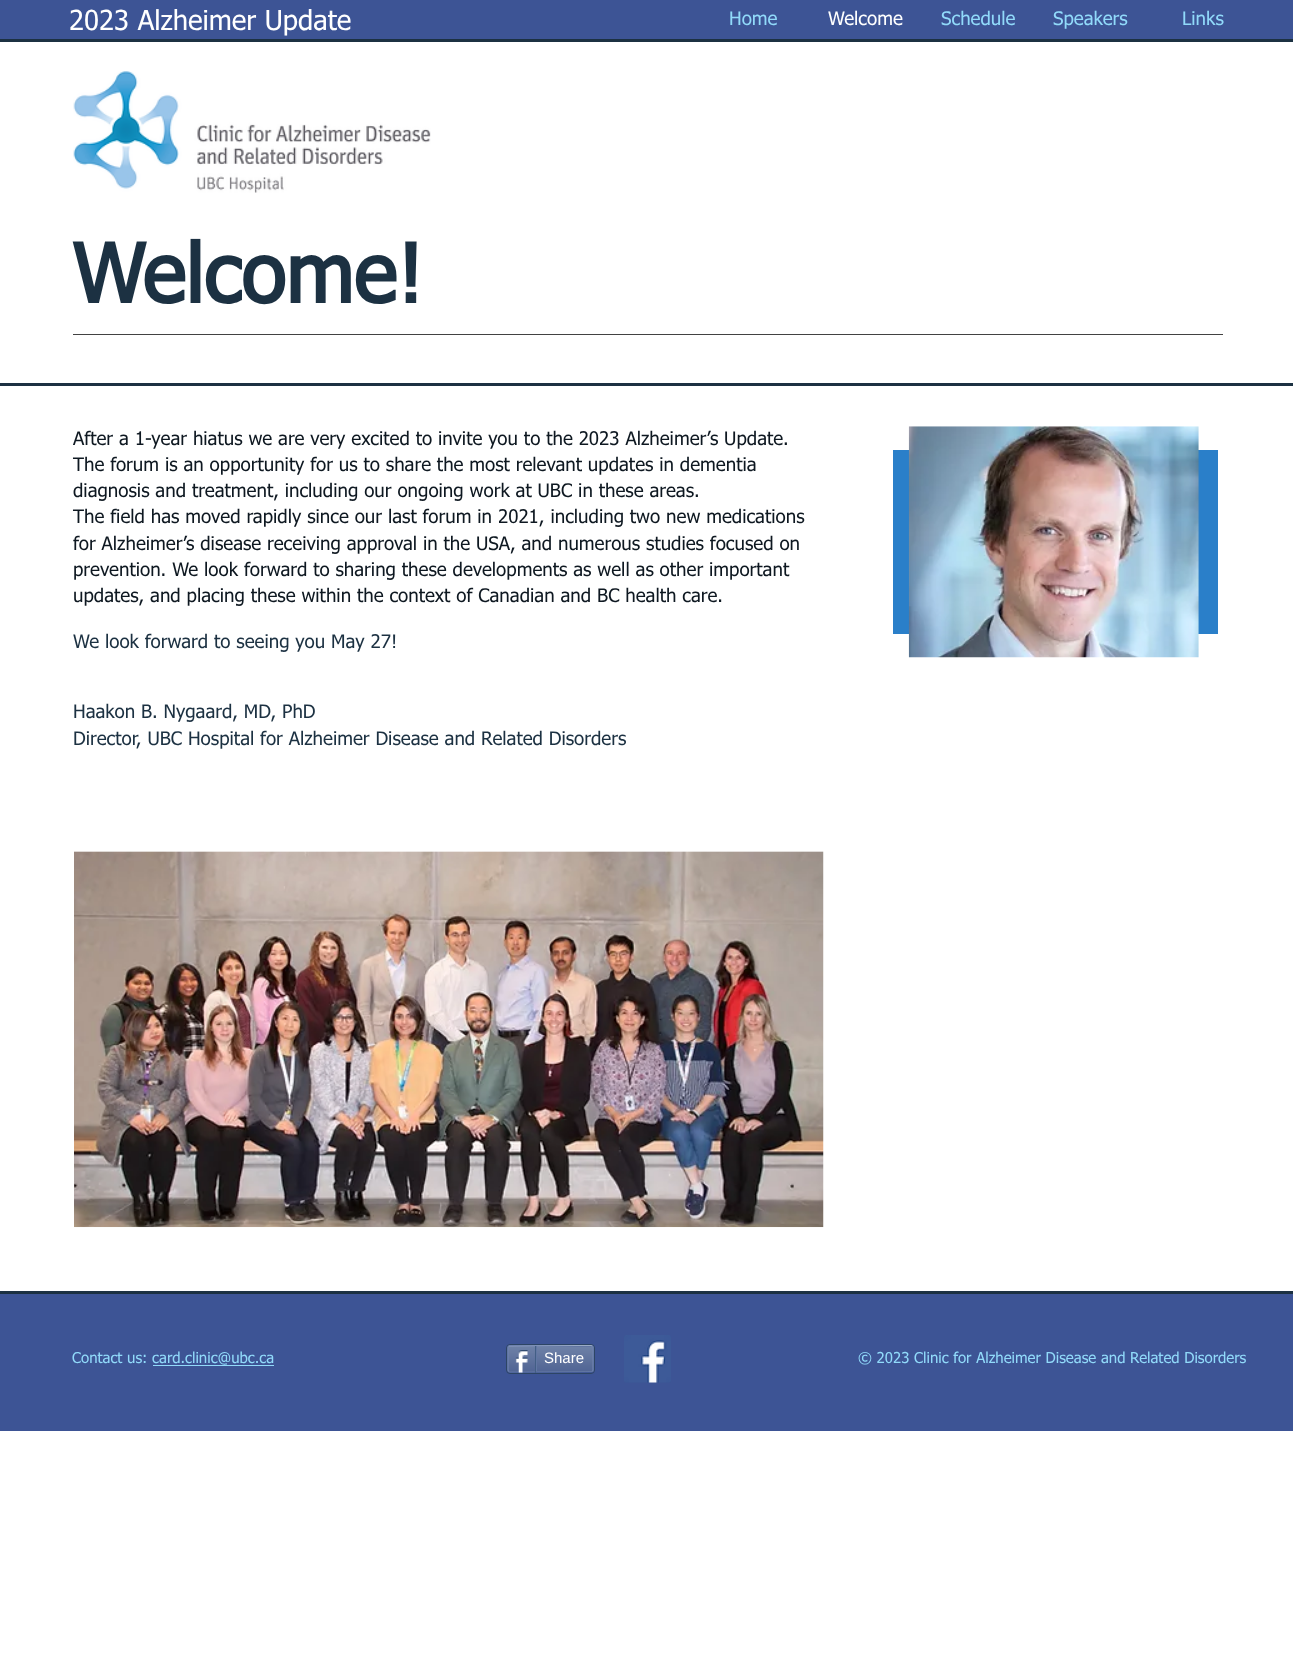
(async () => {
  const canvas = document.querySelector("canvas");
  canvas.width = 1293;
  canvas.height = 1665;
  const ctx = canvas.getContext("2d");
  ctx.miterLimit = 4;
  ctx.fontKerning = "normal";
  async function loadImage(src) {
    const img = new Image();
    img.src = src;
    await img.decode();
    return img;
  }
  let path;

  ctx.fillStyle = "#ffffff";
  ctx.fillRect(0, 0, 1293, 1665);
  ctx.fillStyle = "#3d5495";
  ctx.fillRect(0, 0, 1293, 39);
  ctx.fillStyle = "#1c3142";
  ctx.fillRect(0, 39, 1293, 3);
  ctx.drawImage(await loadImage("img/1.png"), 73, 71, 358, 122);
  ctx.fillRect(0, 383, 1293, 3);
  ctx.fillStyle = "#2a7fc9";
  ctx.fillRect(893, 450, 325, 184);
  ctx.drawImage(await loadImage("img/2.png"), 908, 426, 291, 232);
  ctx.drawImage(await loadImage("img/3.png"), 74, 851, 750, 377);
  for (const [x, y, w, h, color] of [
    [73, 334, 1150, 1, "#424242"],
    [0, 1294, 1293, 137, "#3d5495"],
    [0, 1291, 1293, 3, "#1c3142"],
    [153, 1365, 121, 1, "#91dafa"],
  ]) {
    ctx.fillStyle = color;
    ctx.fillRect(x, y, w, h);
  }
  ctx.beginPath();
  ctx.roundRect(506.5, 1344.5, 88, 29, 3.5);
  ctx.strokeStyle = "#2d4565";
  ctx.stroke();
  ctx.drawImage(await loadImage("img/4.png"), 507, 1346, 87, 27);
  path = new Path2D("M508.5 1346L577.5 1345.5H591L592.5 1346");
  ctx.strokeStyle = "#9aabc6";
  ctx.lineWidth = 1.2;
  ctx.stroke(path);
  path = new Path2D("M592.5 1346L593 1347.5V1370L592.5 1371.5");
  ctx.strokeStyle = "#6f83ad";
  ctx.stroke(path);
  path = new Path2D("M592.5 1371.5L523.5 1372H510L508.5 1371.5");
  ctx.strokeStyle = "#6176a3";
  ctx.stroke(path);
  path = new Path2D("M508.5 1371.5L508 1370V1347.5L508.5 1346");
  ctx.strokeStyle = "#6f83ad";
  ctx.stroke(path);
  ctx.drawImage(await loadImage("img/5.png"), 515, 1350, 13, 23);
  ctx.fillStyle = "#425e85";
  ctx.fillRect(535, 1346, 1, 27);
  ctx.fillStyle = "#6176a3";
  ctx.fillRect(536, 1346, 1, 25);
  ctx.drawImage(await loadImage("img/6.png"), 624, 1335, 47, 48);
  ctx.font = "27.5px tahoma";
  ctx.fillStyle = "#ffffff";
  ctx.fillText("2023 Alzheimer Update", 69, 30);
  ctx.font = "18.75px tahoma";
  ctx.fillStyle = "#91dafa";
  ctx.fillText("Home", 729, 25);
  ctx.fillStyle = "#ffffff";
  ctx.fillText("Welcome", 828, 25);
  ctx.fillStyle = "#91dafa";
  for (const [text, x, y] of [
    ["Schedule", 941, 25],
    ["Speakers", 1053, 25],
    ["Links", 1182, 25],
  ]) {
    ctx.fillText(text, x, y);
  }
  ctx.font = "bold 81.25px tahoma";
  ctx.fillStyle = "#1c3142";
  ctx.fillText("Welcome!", 72, 303);
  ctx.font = "18.75px tahoma";
  ctx.fillStyle = "#0e1821";
  for (const [text, x, y] of [
    ["After a 1-year hiatus we are very excited to invite you to the 2023 Alzheimer’s Update.", 73, 445],
    ["The forum is an opportunity for us to share the most relevant updates in dementia", 73, 471],
    ["diagnosis and treatment, including our ongoing work at UBC in these areas.", 73, 497],
    ["The field has moved rapidly since our last forum in 2021, including two new medications", 73, 523],
    ["for Alzheimer’s disease receiving approval in the USA, and numerous studies focused on", 73, 550],
    ["prevention. We look forward to sharing these developments as well as other important", 73, 576],
    ["updates, and placing these within the context of Canadian and BC health care.", 73, 602],
  ]) {
    ctx.fillText(text, x, y);
  }
  ctx.fillStyle = "#1c3142";
  for (const [text, x, y] of [
    ["We look forward to seeing you May 27!", 73, 648],
    ["Haakon B. Nygaard, MD, PhD", 73, 718],
    ["Director, UBC Hospital for Alzheimer Disease and Related Disorders", 73, 745],
  ]) {
    ctx.fillText(text, x, y);
  }
  ctx.font = "15px tahoma";
  ctx.fillStyle = "#91dafa";
  ctx.fillText("Contact us: card.clinic@ubc.ca", 72, 1363);
  ctx.font = "15px Liberation Sans";
  ctx.fillStyle = "#ffffff";
  ctx.fillText("Share", 544, 1363);
  ctx.font = "15px tahoma";
  ctx.fillStyle = "#91dafa";
  ctx.fillText("© 2023 Clinic for Alzheimer Disease and Related Disorders", 858, 1363);
})();
